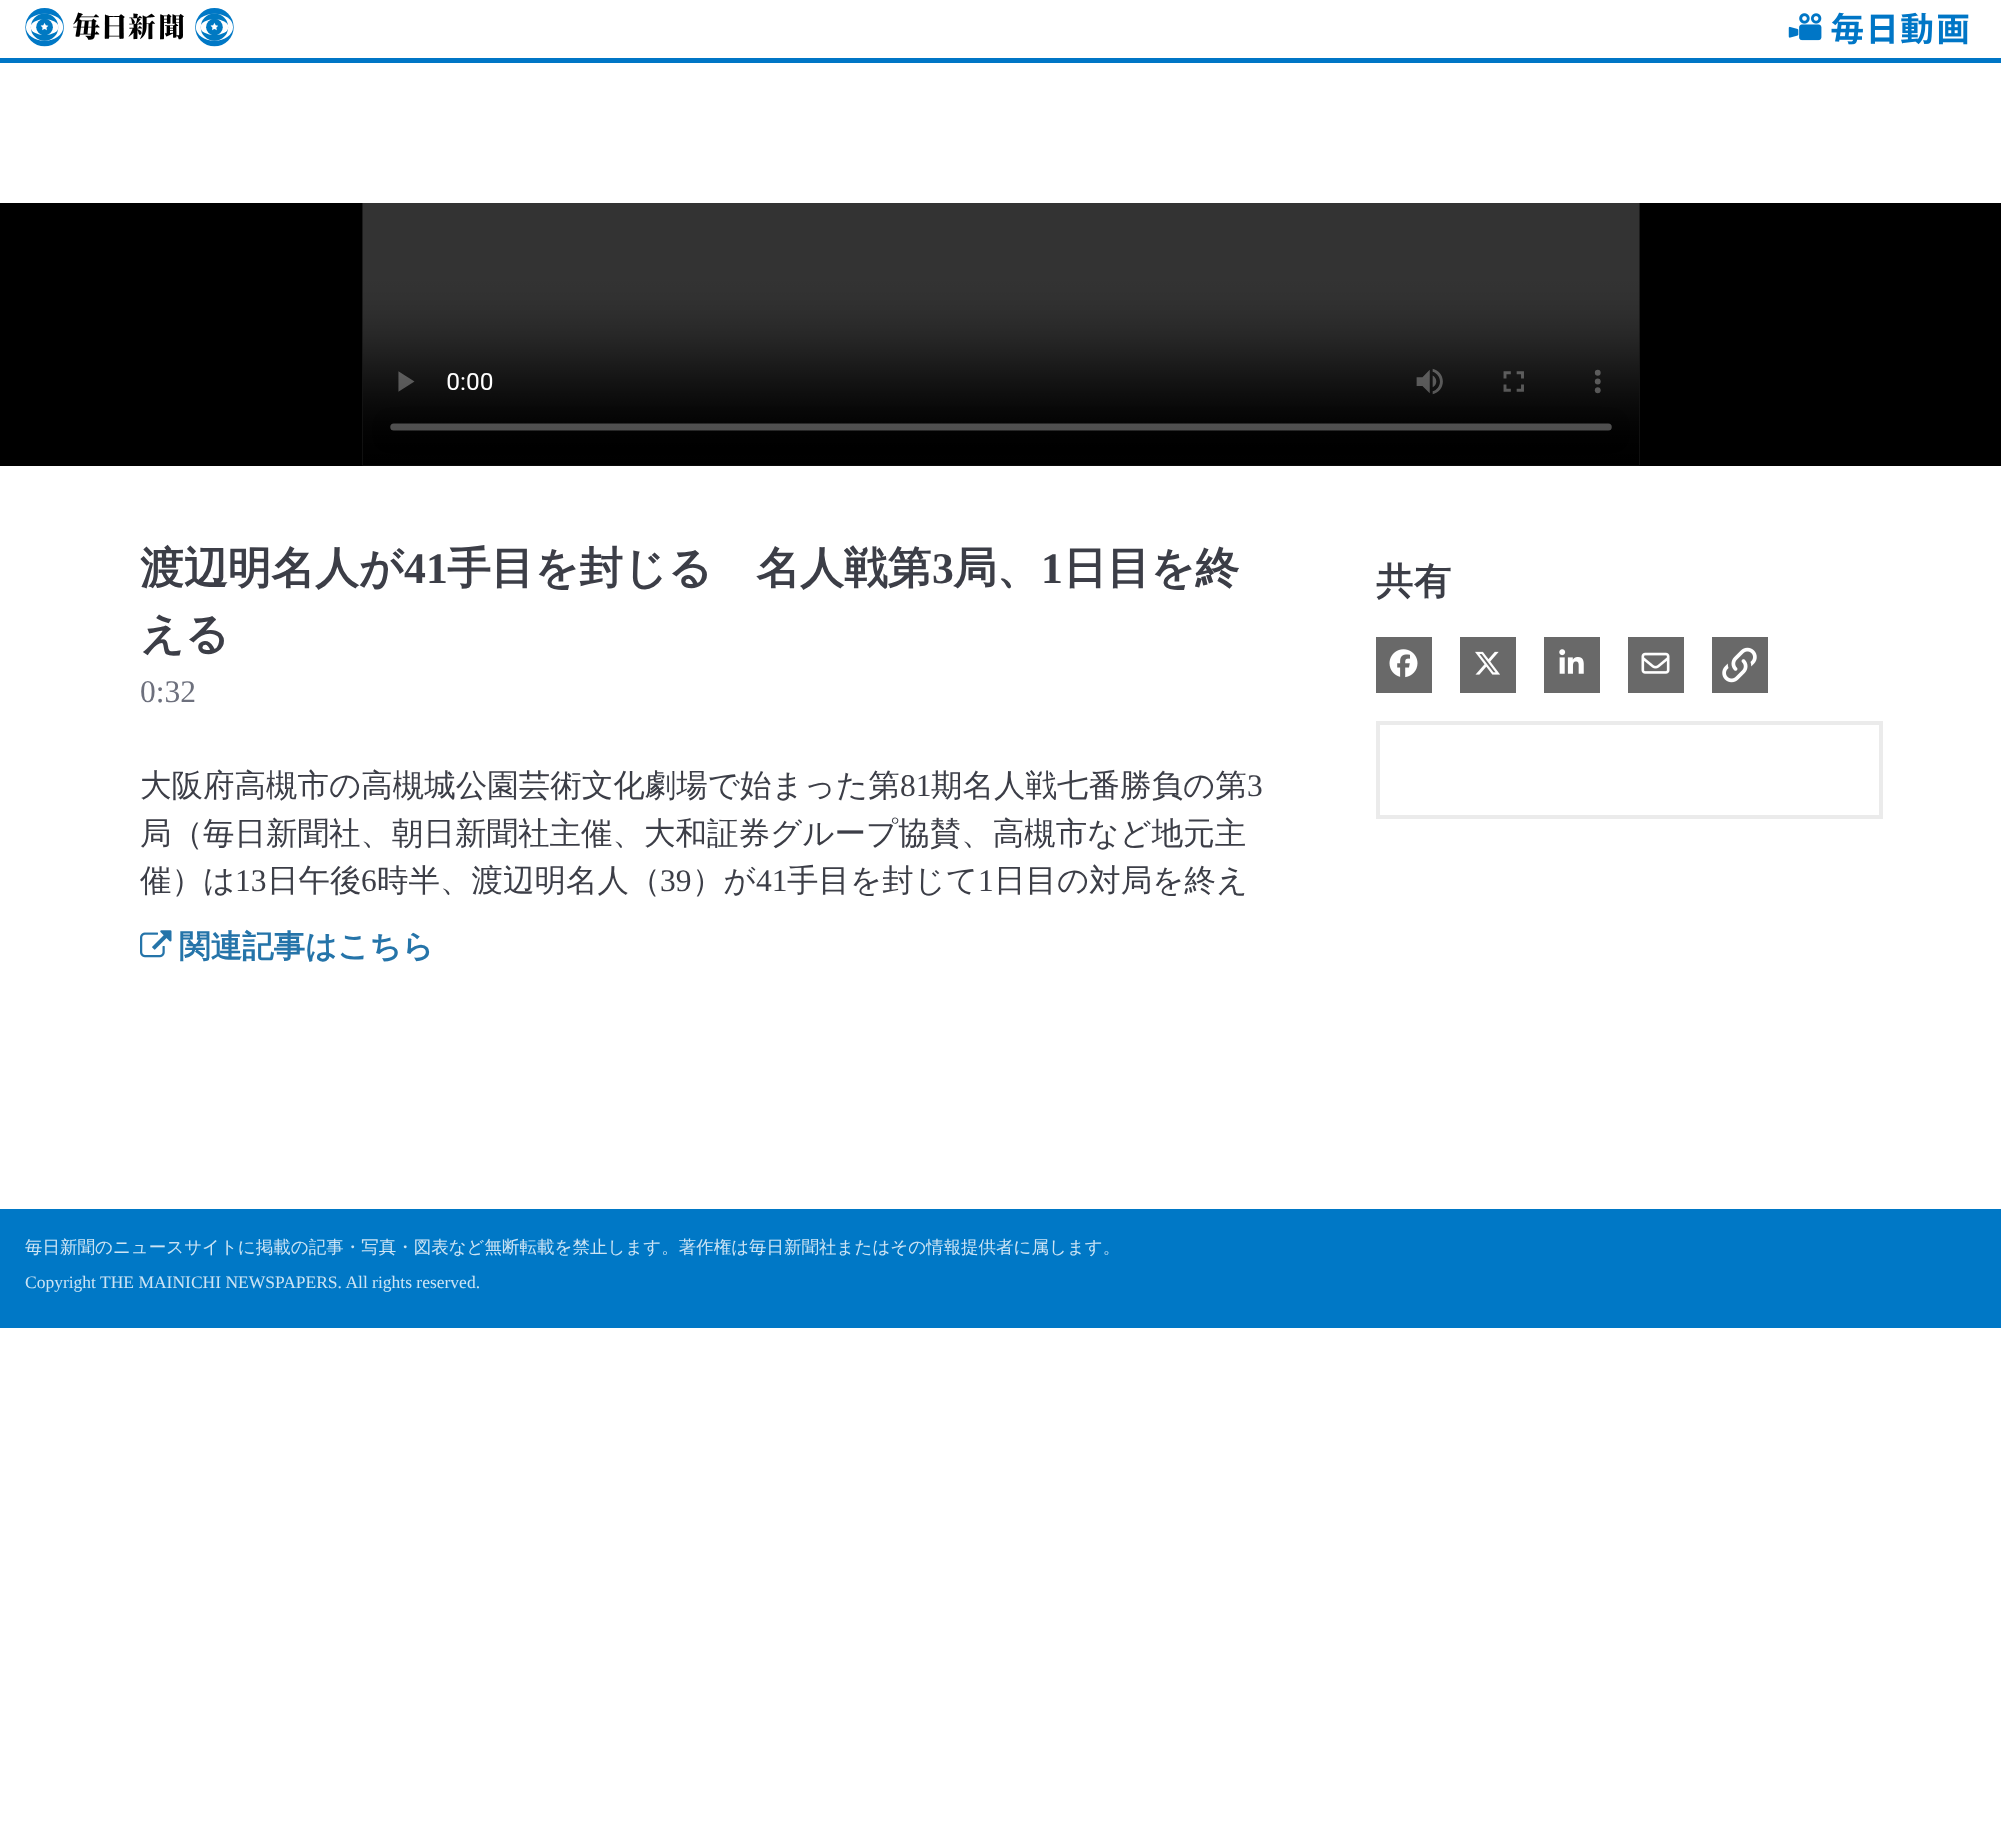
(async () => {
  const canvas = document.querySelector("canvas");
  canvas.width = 2001;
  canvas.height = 1828;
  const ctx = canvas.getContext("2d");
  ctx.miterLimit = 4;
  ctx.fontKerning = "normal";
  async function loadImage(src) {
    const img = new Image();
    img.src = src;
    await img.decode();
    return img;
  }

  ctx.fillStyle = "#ffffff";
  ctx.fillRect(0, 0, 2001, 1828);
  ctx.fillStyle = "#0076c6";
  ctx.fillRect(0, 58, 2001, 5);
  ctx.drawImage(await loadImage("img/1.png"), 25, 8, 209, 39);
  ctx.drawImage(await loadImage("img/2.png"), 1788, 12, 181, 33);
  ctx.fillStyle = "#000000";
  ctx.fillRect(0, 203, 2001, 263);
  ctx.drawImage(await loadImage("img/3.png"), 362, 203, 1278, 263);
  ctx.drawImage(await loadImage("img/4.png"), 140, 930, 32, 28);
  ctx.fillStyle = "#696969";
  ctx.fillRect(1376, 637, 56, 56);
  ctx.drawImage(await loadImage("img/5.png"), 1389, 649, 29, 29);
  ctx.fillRect(1460, 637, 56, 56);
  ctx.drawImage(await loadImage("img/6.png"), 1475, 651, 25, 24);
  ctx.fillRect(1544, 637, 56, 56);
  ctx.drawImage(await loadImage("img/7.png"), 1559, 649, 25, 25);
  ctx.fillRect(1628, 637, 56, 56);
  ctx.drawImage(await loadImage("img/8.png"), 1641, 652, 29, 22);
  ctx.fillRect(1712, 637, 56, 56);
  ctx.drawImage(await loadImage("img/9.png"), 1722, 647, 35, 36);
  ctx.strokeStyle = "#ebebeb";
  ctx.lineWidth = 4;
  ctx.strokeRect(1378, 723, 503, 94);
  ctx.fillStyle = "#0078c6";
  ctx.fillRect(0, 1209, 2001, 119);
  ctx.font = "bold 43.75px WenQuanYi Zen Hei";
  ctx.fillStyle = "#3c3e47";
  ctx.fillText("渡辺明名人が", 140, 583);
  ctx.font = "bold 43.75px Liberation Serif";
  ctx.fillText("41", 404, 583);
  ctx.font = "bold 43.75px WenQuanYi Zen Hei";
  ctx.fillText("手目を封じる　名人戦第", 447, 583);
  ctx.font = "bold 43.75px Liberation Serif";
  ctx.fillText("3", 932, 583);
  ctx.font = "bold 43.75px WenQuanYi Zen Hei";
  ctx.fillText("局、", 953, 583);
  ctx.font = "bold 43.75px Liberation Serif";
  ctx.fillText("1", 1041, 583);
  ctx.font = "bold 43.75px WenQuanYi Zen Hei";
  ctx.fillText("日目を終", 1063, 583);
  ctx.fillText("える", 140, 649);
  ctx.font = "31.5px Liberation Serif";
  ctx.fillStyle = "#6d707d";
  ctx.fillText("0:32", 140, 702);
  ctx.font = "500 31.5px WenQuanYi Zen Hei";
  ctx.fillStyle = "#3c3e47";
  ctx.fillText("大阪府高槻市の高槻城公園芸術文化劇場で始まった第", 140, 796);
  ctx.font = "31.5px Liberation Serif";
  ctx.fillText("81", 900, 796);
  ctx.font = "500 31.5px WenQuanYi Zen Hei";
  ctx.fillText("期名人戦七番勝負の第", 931, 796);
  ctx.font = "31.5px Liberation Serif";
  ctx.fillText("3", 1247, 796);
  ctx.font = "500 31.5px WenQuanYi Zen Hei";
  ctx.fillText("局（毎日新聞社、朝日新聞社主催、大和証券グループ協賛、高槻市など地元主", 140, 844);
  ctx.fillText("催）は", 140, 891);
  ctx.font = "31.5px Liberation Serif";
  ctx.fillText("13", 235, 891);
  ctx.font = "500 31.5px WenQuanYi Zen Hei";
  ctx.fillText("日午後", 267, 891);
  ctx.font = "31.5px Liberation Serif";
  ctx.fillText("6", 361, 891);
  ctx.font = "500 31.5px WenQuanYi Zen Hei";
  ctx.fillText("時半、渡辺明名人（", 377, 891);
  ctx.font = "31.5px Liberation Serif";
  ctx.fillText("39", 660, 891);
  ctx.font = "500 31.5px WenQuanYi Zen Hei";
  ctx.fillText("）が", 692, 891);
  ctx.font = "31.5px Liberation Serif";
  ctx.fillText("41", 756, 891);
  ctx.font = "500 31.5px WenQuanYi Zen Hei";
  ctx.fillText("手目を封じて", 787, 891);
  ctx.font = "31.5px Liberation Serif";
  ctx.fillText("1", 978, 891);
  ctx.font = "500 31.5px WenQuanYi Zen Hei";
  ctx.fillText("日目の対局を終え", 994, 891);
  ctx.font = "bold 31.5px WenQuanYi Zen Hei";
  ctx.fillStyle = "#2574a9";
  ctx.fillText("関連記事はこちら", 179, 957);
  ctx.letterSpacing = "1px";
  ctx.font = "bold 37px WenQuanYi Zen Hei";
  ctx.fillStyle = "#3c3e47";
  ctx.fillText("共有", 1376, 594);
  ctx.letterSpacing = "0px";
  ctx.font = "500 17.5px WenQuanYi Zen Hei";
  ctx.fillStyle = "#cce4f4";
  ctx.fillText("毎日新聞のニュースサイトに掲載の記事・写真・図表など無断転載を禁止します。著作権は毎日新聞社またはその情報提供者に属します。", 25, 1253);
  ctx.font = "17.5px Liberation Serif";
  ctx.fillText("Copyright THE MAINICHI NEWSPAPERS. All rights reserved.", 25, 1288);
})();
